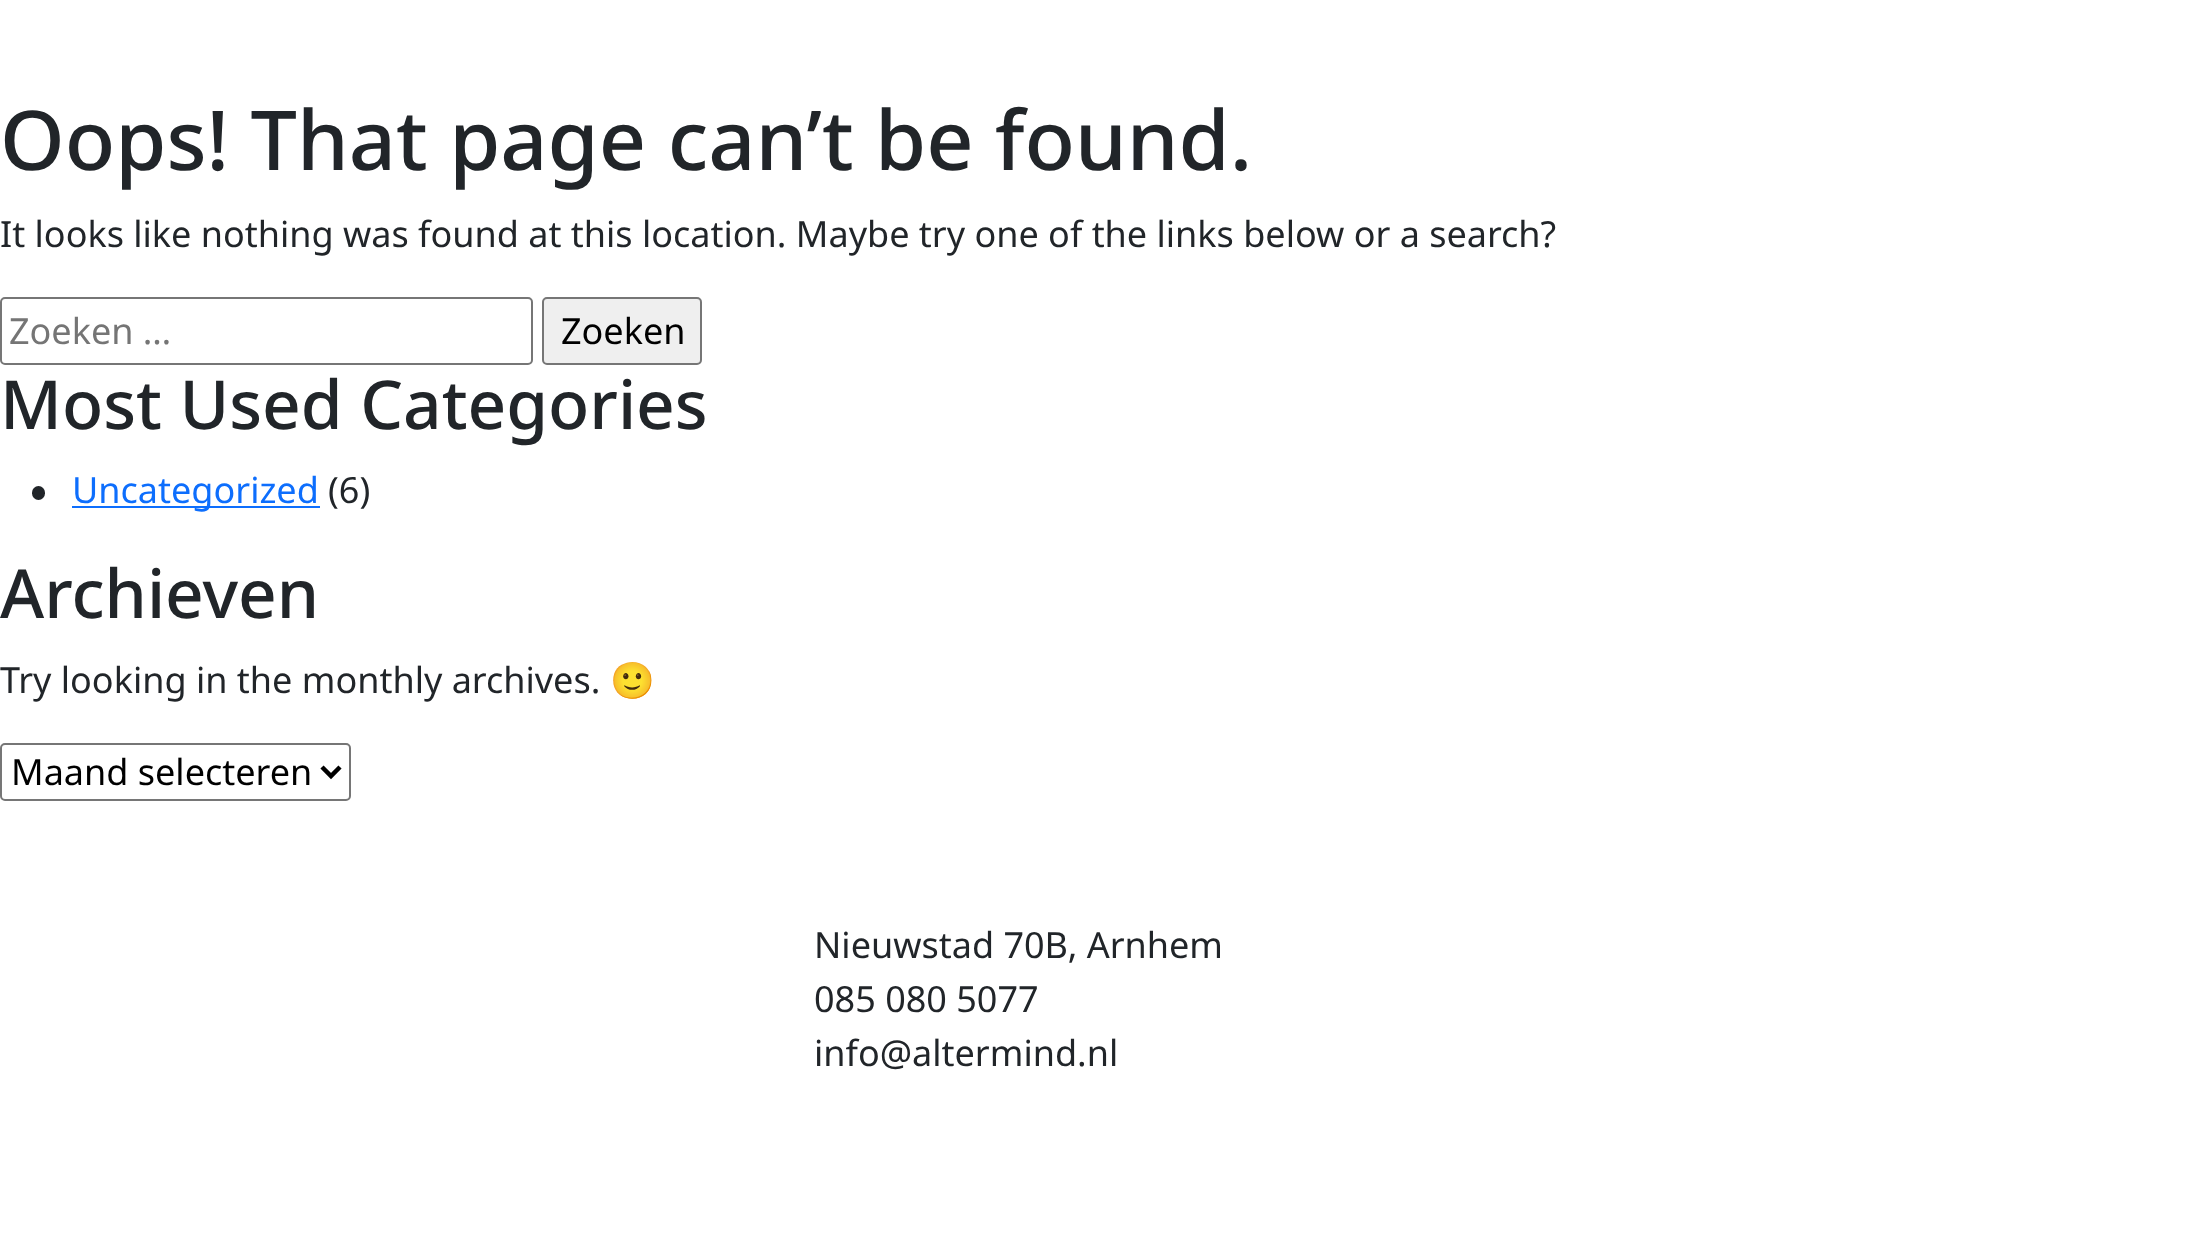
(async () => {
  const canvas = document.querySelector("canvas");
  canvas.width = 2203;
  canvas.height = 1238;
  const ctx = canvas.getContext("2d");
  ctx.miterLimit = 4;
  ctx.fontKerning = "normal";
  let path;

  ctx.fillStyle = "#ffffff";
  ctx.fillRect(0, 0, 2203, 1238);
  ctx.beginPath();
  ctx.roundRect(1, 298, 531, 66, 4);
  ctx.strokeStyle = "#767676";
  ctx.lineWidth = 2;
  ctx.stroke();
  ctx.fillStyle = "#efefef";
  ctx.beginPath();
  ctx.roundRect(543, 298, 158, 66, 4);
  ctx.fill();
  ctx.stroke();
  ctx.fillStyle = "#212529";
  ctx.beginPath();
  ctx.roundRect(32, 486, 13, 14, 6.5);
  ctx.fill();
  ctx.fillStyle = "#0d6efd";
  ctx.fillRect(72, 506, 248, 2);
  ctx.beginPath();
  ctx.roundRect(1, 744, 349, 56, 4);
  ctx.stroke();
  path = new Path2D("M322 767L331 776L340 767");
  ctx.strokeStyle = "#000000";
  ctx.lineWidth = 4.5;
  ctx.stroke(path);
  ctx.font = "500 82.6px Noto Sans";
  ctx.fillStyle = "#212529";
  ctx.fillText("Oops! That page can’t be found.", 0, 170);
  ctx.font = "36px Noto Sans";
  ctx.fillText("It looks like nothing was found at this location. Maybe try one of the links below or a search?", 0, 247);
  ctx.fillStyle = "#757575";
  ctx.fillText("Zoeken …", 9, 344);
  ctx.fillStyle = "#000000";
  ctx.fillText("Zoeken", 561, 344);
  ctx.font = "500 67.5px Noto Sans";
  ctx.fillStyle = "#212529";
  ctx.fillText("Most Used Categories", 0, 429);
  ctx.font = "36px Noto Sans";
  ctx.fillStyle = "#0d6efd";
  ctx.fillText("Uncategorized", 72, 503);
  ctx.fillStyle = "#212529";
  ctx.fillText("(6)", 328, 503);
  ctx.font = "500 67.5px Noto Sans";
  ctx.fillText("Archieven", 0, 618);
  ctx.font = "36px Noto Sans";
  ctx.fillText("Try looking in the monthly archives.", 0, 693);
  ctx.font = "36px Noto Color Emoji";
  ctx.fillText("🙂", 610, 693);
  ctx.font = "36px Noto Sans";
  ctx.fillStyle = "#000000";
  ctx.fillText("Maand selecteren", 11, 785);
  ctx.fillStyle = "#212529";
  for (const [text, x, y] of [
    ["Nieuwstad 70B, Arnhem", 814, 958],
    ["085 080 5077", 814, 1012],
    ["info@altermind.nl", 814, 1066],
  ]) {
    ctx.fillText(text, x, y);
  }
})();
